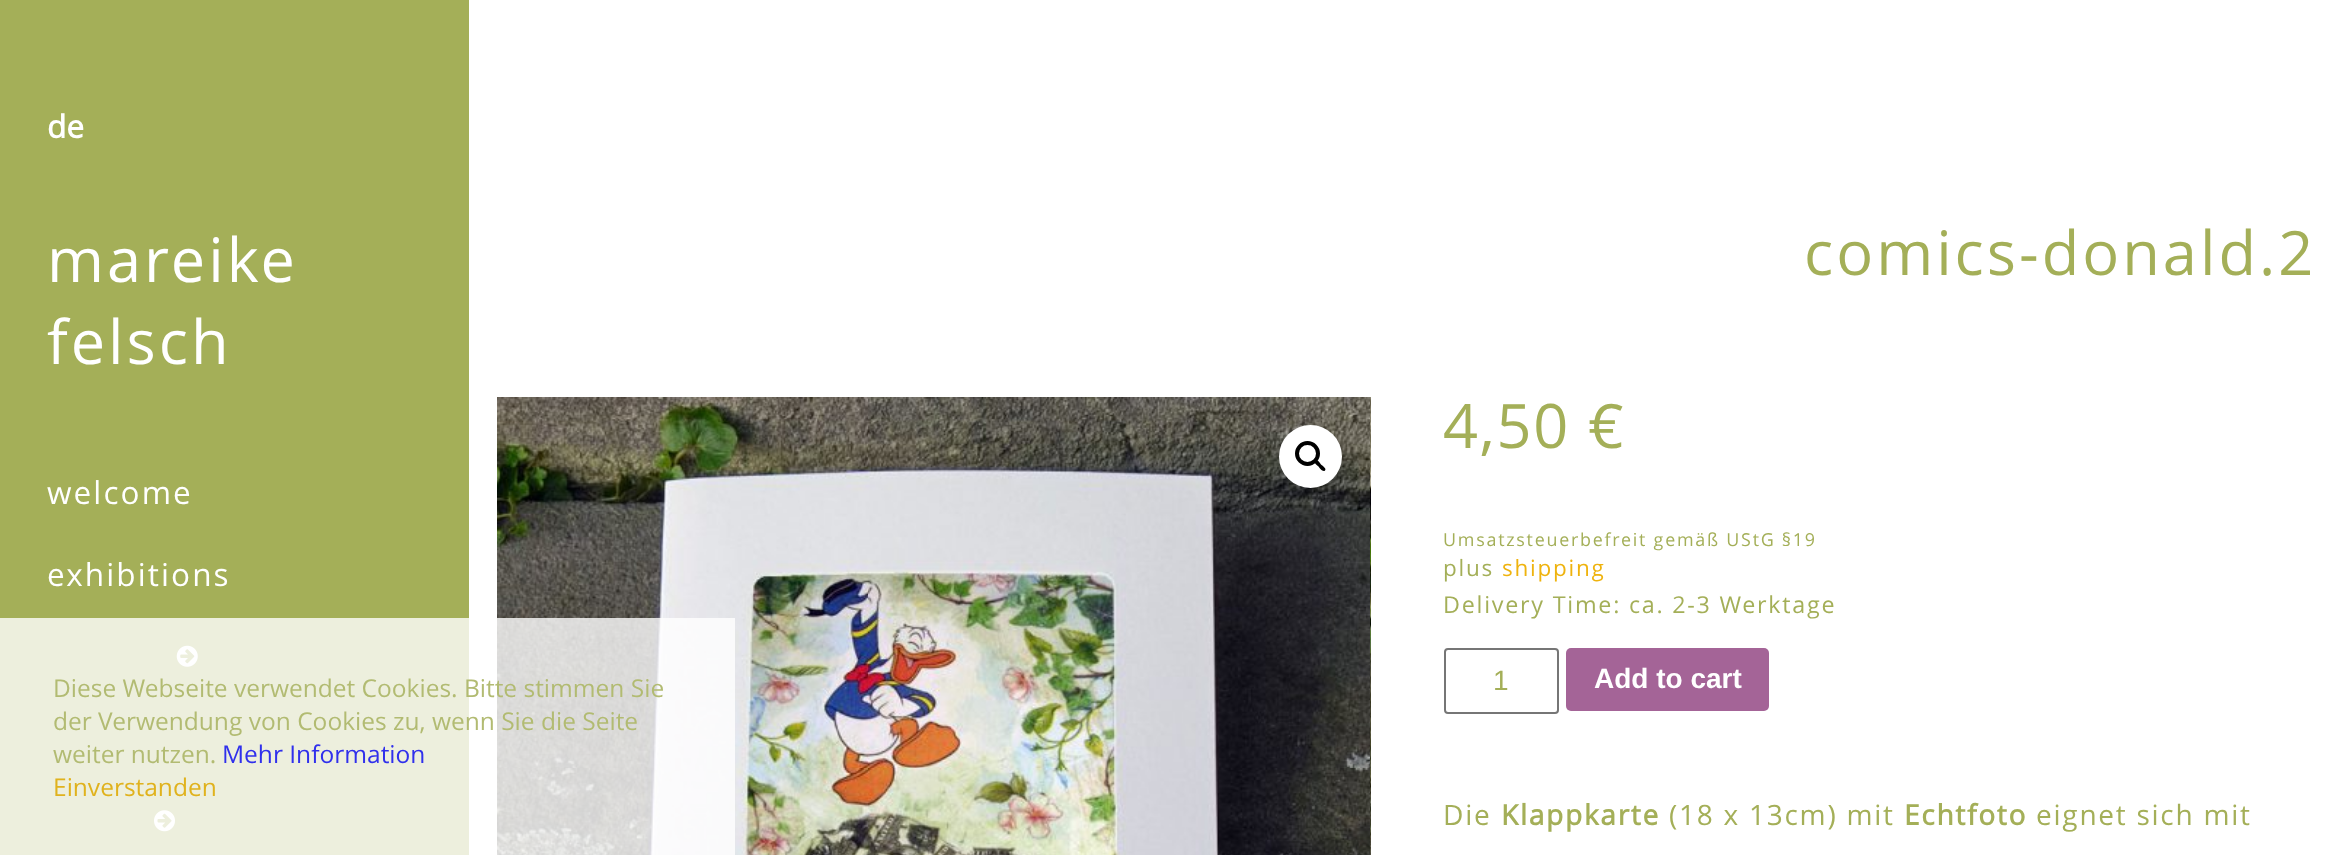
(async () => {
  const canvas = document.querySelector("canvas");
  canvas.width = 2344;
  canvas.height = 855;
  const ctx = canvas.getContext("2d");
  ctx.miterLimit = 4;
  ctx.fontKerning = "normal";
  async function loadImage(src) {
    const img = new Image();
    img.src = src;
    await img.decode();
    return img;
  }
  let path;

  ctx.fillStyle = "#ffffff";
  ctx.fillRect(0, 0, 2344, 855);
  ctx.fillStyle = "#a4af58";
  ctx.fillRect(0, 0, 469, 855);
  ctx.drawImage(await loadImage("img/1.png"), 176, 645, 22, 22);
  ctx.drawImage(await loadImage("img/2.png"), 154, 810, 21, 22);
  ctx.drawImage(await loadImage("img/3.png"), 497, 397, 873, 458);
  ctx.drawImage(await loadImage("img/4.png"), 1370, 397, 1, 458);
  ctx.fillStyle = "#ffffff";
  ctx.beginPath();
  ctx.arc(1310.5, 456.5, 31.5, 0, Math.PI * 2);
  ctx.fill();
  ctx.beginPath();
  ctx.arc(1307.5, 453.5, 10.5, 0, Math.PI * 2);
  ctx.strokeStyle = "#000000";
  ctx.lineWidth = 4;
  ctx.stroke();
  ctx.fillStyle = "#000000";
  path = new Path2D("M1315 460.5C1317 458.5 1320 463 1321 464.5C1322 465.5 1327 468.5 1325 470.5C1323 472.5 1319.5 468 1318.5 466.5C1317.5 465.5 1313 462.5 1315 460.5Z");
  ctx.fill(path);
  ctx.beginPath();
  ctx.roundRect(1445, 649, 113, 64, 3);
  ctx.strokeStyle = "#767676";
  ctx.lineWidth = 2;
  ctx.stroke();
  ctx.fillStyle = "#a46497";
  ctx.beginPath();
  ctx.roundRect(1566, 648, 203, 63, 5);
  ctx.fill();
  ctx.fillStyle = "rgba(255, 255, 255, 0.8)";
  ctx.fillRect(0, 618, 735, 237);
  ctx.font = "bold 31.5px Open Sans";
  ctx.fillStyle = "#ffffff";
  ctx.fillText("de", 47, 138);
  ctx.letterSpacing = "3px";
  ctx.font = "61.25px Open Sans";
  ctx.fillText("mareike", 47, 282);
  ctx.fillText("felsch", 47, 364);
  ctx.letterSpacing = "2.1px";
  ctx.font = "31.5px Open Sans";
  ctx.fillText("welcome", 47, 504);
  ctx.fillText("exhibitions", 47, 586);
  ctx.letterSpacing = "3px";
  ctx.font = "61.25px Open Sans";
  ctx.fillStyle = "#a4af58";
  ctx.fillText("comics-donald.2", 1804, 275);
  ctx.letterSpacing = "1.75px";
  ctx.fillText("4,50 €", 1443, 448);
  ctx.font = "17.9px Open Sans";
  ctx.fillText("Umsatzsteuerbefreit gemäß UStG §19", 1443, 546);
  ctx.font = "22.5px Open Sans";
  ctx.fillText("plus", 1443, 576);
  ctx.fillStyle = "#efb30e";
  ctx.fillText("shipping", 1502, 576);
  ctx.font = "23.3px Open Sans";
  ctx.fillStyle = "#a4af58";
  ctx.fillText("Delivery Time: ca. 2-3 Werktage", 1443, 613);
  ctx.letterSpacing = "0px";
  ctx.font = "28px Liberation Sans";
  ctx.fillText("1", 1493, 690);
  ctx.font = "bold 28px Liberation Sans";
  ctx.fillStyle = "#ffffff";
  ctx.fillText("Add to cart", 1594, 688);
  ctx.letterSpacing = "1.75px";
  ctx.font = "28px Open Sans";
  ctx.fillStyle = "#a4af58";
  ctx.fillText("Die", 1443, 825);
  ctx.font = "bold 28px Open Sans";
  ctx.fillText("Klappkarte", 1501, 825);
  ctx.font = "28px Open Sans";
  ctx.fillText("(18 x 13cm) mit", 1669, 825);
  ctx.font = "bold 28px Open Sans";
  ctx.fillText("Echtfoto", 1904, 825);
  ctx.font = "28px Open Sans";
  ctx.fillText("eignet sich mit", 2036, 825);
  ctx.letterSpacing = "0px";
  ctx.font = "24.5px Open Sans";
  ctx.fillStyle = "#b2bb72";
  for (const [text, x, y] of [
    ["Diese Webseite verwendet Cookies. Bitte stimmen Sie", 53, 697],
    ["der Verwendung von Cookies zu, wenn Sie die Seite", 53, 730],
    ["weiter nutzen.", 53, 763],
  ]) {
    ctx.fillText(text, x, y);
  }
  ctx.fillStyle = "#3030ec";
  ctx.fillText("Mehr Information", 222, 763);
  ctx.fillStyle = "#e0b21d";
  ctx.fillText("Einverstanden", 53, 796);
})();
